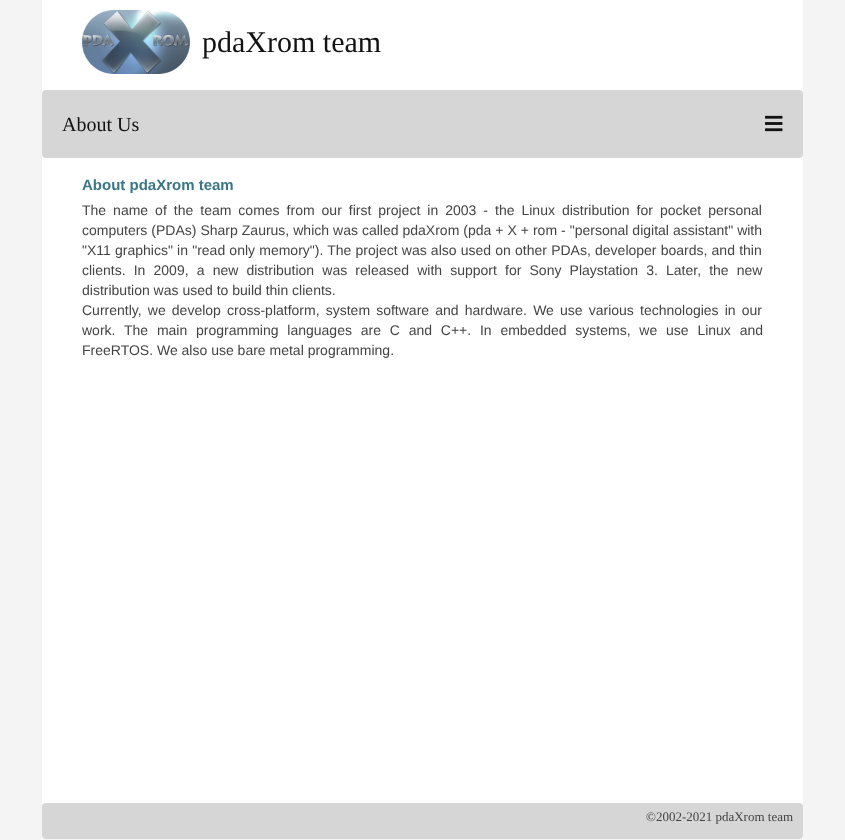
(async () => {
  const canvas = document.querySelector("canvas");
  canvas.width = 845;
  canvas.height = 840;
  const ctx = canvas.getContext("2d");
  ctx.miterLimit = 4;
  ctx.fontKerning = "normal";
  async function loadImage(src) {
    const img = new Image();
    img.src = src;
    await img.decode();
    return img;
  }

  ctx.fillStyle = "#f4f4f4";
  ctx.fillRect(0, 0, 845, 840);
  ctx.fillStyle = "#ffffff";
  ctx.fillRect(42, 0, 761, 839);
  ctx.drawImage(await loadImage("img/1.png"), 82, 10, 108, 64);
  ctx.fillStyle = "#d6d6d6";
  ctx.beginPath();
  ctx.roundRect(42, 90, 761, 68, 4);
  ctx.fill();
  ctx.drawImage(await loadImage("img/2.png"), 765, 115, 18, 17);
  ctx.beginPath();
  ctx.roundRect(42, 803, 761, 36, 4);
  ctx.fill();
  ctx.font = "30px Liberation Serif";
  ctx.fillStyle = "#121212";
  ctx.fillText("pdaXrom team", 202, 52);
  ctx.font = "20px Liberation Serif";
  ctx.fillText("About Us", 62, 131);
  ctx.font = "bold 15px Liberation Sans";
  ctx.fillStyle = "#3b7687";
  ctx.fillText("About pdaXrom team", 82, 190);
  ctx.wordSpacing = "3.1px";
  ctx.font = "14px Liberation Sans";
  ctx.fillStyle = "#444444";
  ctx.fillText("The name of the team comes from our first project in 2003 - the Linux distribution for pocket personal", 82, 215);
  ctx.wordSpacing = "0.1px";
  ctx.fillText("computers (PDAs) Sharp Zaurus, which was called pdaXrom (pda + X + rom - \"personal digital assistant\" with", 82, 235);
  ctx.wordSpacing = "0.3px";
  ctx.fillText("\"X11 graphics\" in \"read only memory\"). The project was also used on other PDAs, developer boards, and thin", 82, 255);
  ctx.wordSpacing = "4.25px";
  ctx.fillText("clients. In 2009, a new distribution was released with support for Sony Playstation 3. Later, the new", 82, 275);
  ctx.wordSpacing = "0px";
  ctx.fillText("distribution was used to build thin clients.", 82, 295);
  ctx.wordSpacing = "2.25px";
  ctx.fillText("Currently, we develop cross-platform, system software and hardware. We use various technologies in our", 82, 315);
  ctx.wordSpacing = "4.9px";
  ctx.fillText("work. The main programming languages are C and C++. In embedded systems, we use Linux and", 82, 335);
  ctx.wordSpacing = "0px";
  ctx.fillText("FreeRTOS. We also use bare metal programming.", 82, 355);
  ctx.font = "13px Liberation Serif";
  ctx.fillText("©2002-2021 pdaXrom team", 646, 821);
})();
